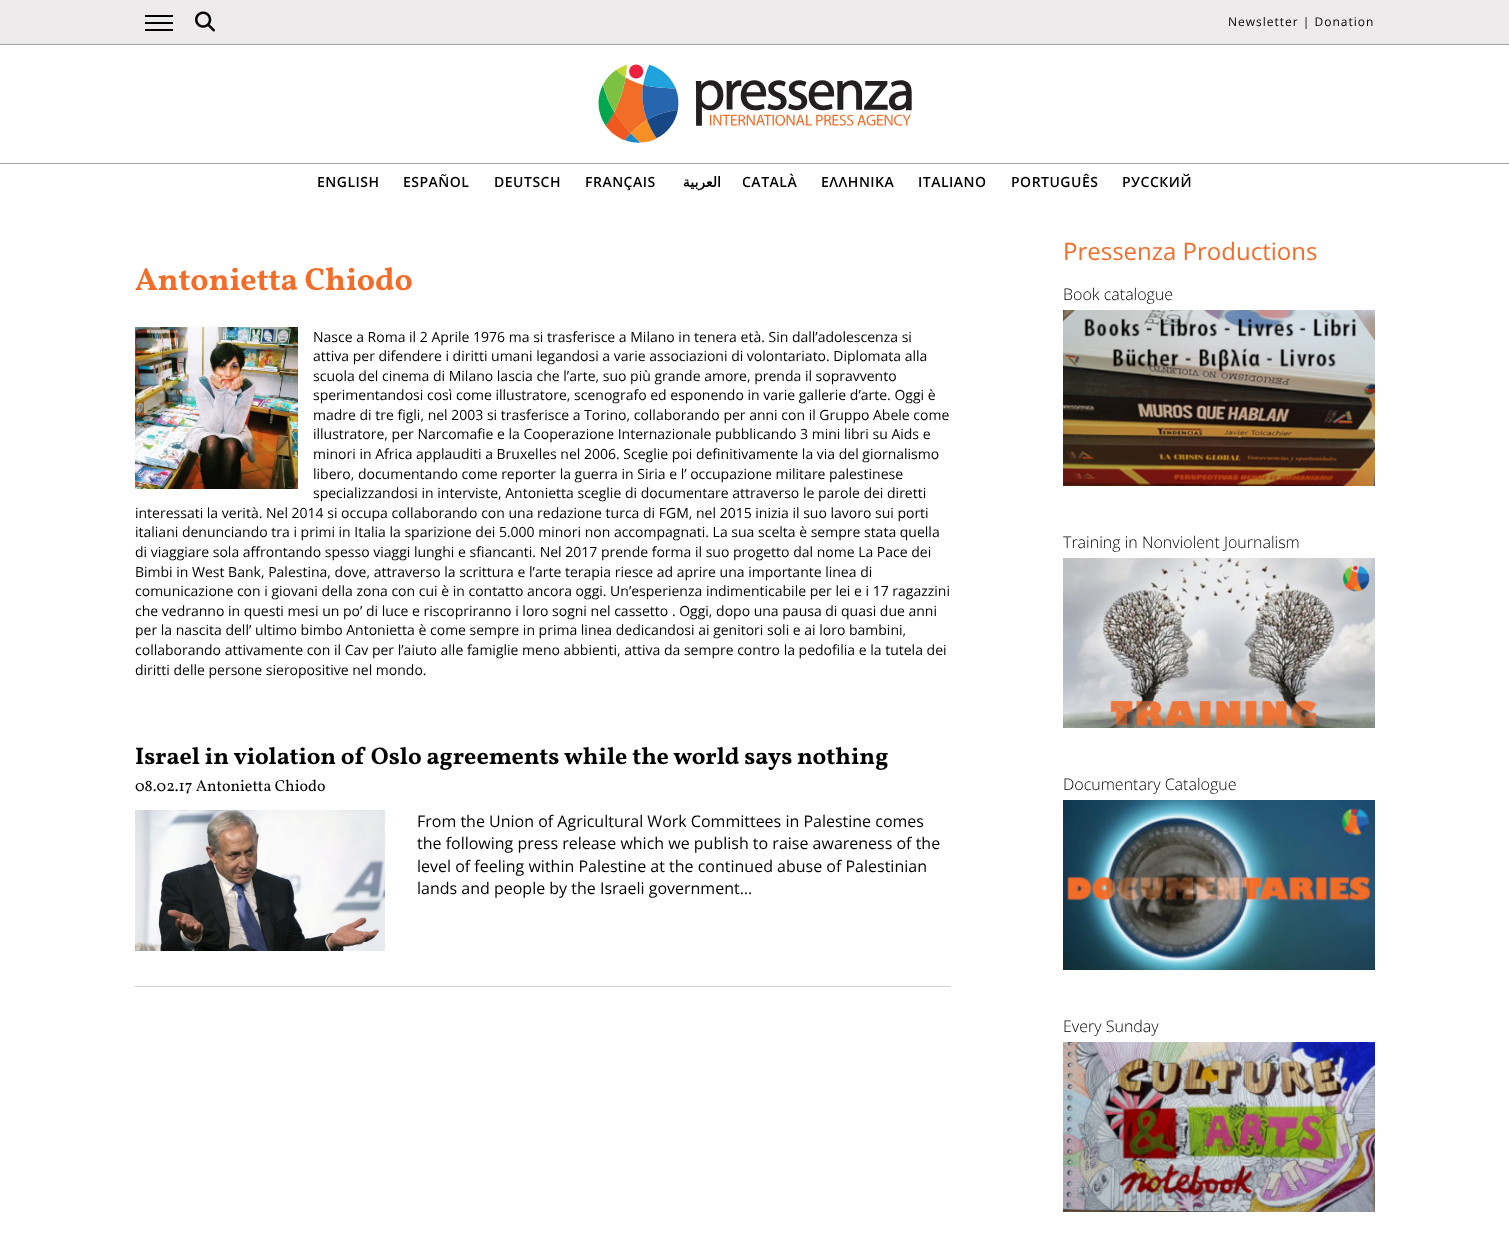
(async () => {
  const canvas = document.querySelector("canvas");
  canvas.width = 1509;
  canvas.height = 1252;
  const ctx = canvas.getContext("2d");
  ctx.miterLimit = 4;
  ctx.fontKerning = "normal";
  async function loadImage(src) {
    const img = new Image();
    img.src = src;
    await img.decode();
    return img;
  }

  ctx.fillStyle = "#ffffff";
  ctx.fillRect(0, 0, 1509, 1252);
  for (const [x, y, w, h, color] of [
    [0, 0, 1509, 44, "#edebeb"],
    [0, 44, 1509, 1, "#a0a2a3"],
    [145, 15, 28, 2, "#000000"],
    [145, 22, 28, 2, "#000000"],
    [145, 29, 28, 2, "#000000"],
  ]) {
    ctx.fillStyle = color;
    ctx.fillRect(x, y, w, h);
  }
  ctx.drawImage(await loadImage("img/1.png"), 195, 11, 20, 21);
  ctx.fillStyle = "#a0a2a3";
  ctx.fillRect(0, 163, 1509, 1);
  ctx.drawImage(await loadImage("img/2.png"), 598, 64, 314, 79);
  ctx.drawImage(await loadImage("img/3.png"), 135, 327, 163, 162);
  ctx.fillStyle = "#d4d2d3";
  ctx.fillRect(135, 986, 816, 1);
  ctx.drawImage(await loadImage("img/4.png"), 135, 810, 250, 141);
  ctx.drawImage(await loadImage("img/5.png"), 1063, 310, 312, 176);
  ctx.drawImage(await loadImage("img/6.png"), 1063, 558, 312, 170);
  ctx.drawImage(await loadImage("img/7.png"), 1063, 800, 312, 170);
  ctx.drawImage(await loadImage("img/8.png"), 1063, 1042, 312, 170);
  ctx.letterSpacing = "1px";
  ctx.font = "12px Open Sans";
  ctx.fillStyle = "#000000";
  ctx.fillText("Newsletter | Donation", 1228, 26);
  ctx.letterSpacing = "0.5px";
  ctx.font = "600 14px Open Sans";
  for (const [text, x, y] of [
    ["ENGLISH", 317, 187],
    ["ESPAÑOL", 403, 187],
    ["DEUTSCH", 494, 187],
    ["FRANÇAIS", 585, 187],
  ]) {
    ctx.fillText(text, x, y);
  }
  ctx.direction = "rtl";
  ctx.font = "bold 14px DejaVu Sans";
  ctx.fillText("العربية", 721, 187);
  ctx.direction = "ltr";
  ctx.font = "600 14px Open Sans";
  for (const [text, x, y] of [
    ["CATALÀ", 742, 187],
    ["ΕΛΛΗΝΙΚΑ", 821, 187],
    ["ITALIANO", 918, 187],
    ["PORTUGUÊS", 1011, 187],
    ["РУССКИЙ", 1122, 187],
  ]) {
    ctx.fillText(text, x, y);
  }
  ctx.letterSpacing = "0px";
  ctx.font = "bold 32px Vollkorn";
  ctx.fillStyle = "#f36d29";
  ctx.fillText("Antonietta Chiodo", 135, 290);
  ctx.font = "14px Open Sans";
  ctx.fillStyle = "#000000";
  for (const [text, x, y] of [
    ["Nasce a Roma il 2 Aprile 1976 ma si trasferisce a Milano in tenera età. Sin dall’adolescenza si", 313, 342],
    ["attiva per difendere i diritti umani legandosi a varie associazioni di volontariato. Diplomata alla", 313, 361],
    ["scuola del cinema di Milano lascia che l’arte, suo più grande amore, prenda il sopravvento", 313, 381],
    ["sperimentandosi così come illustratore, scenografo ed esponendo in varie gallerie d’arte. Oggi è", 313, 400],
    ["madre di tre figli, nel 2003 si trasferisce a Torino, collaborando per anni con il Gruppo Abele come", 313, 420],
    ["illustratore, per Narcomafie e la Cooperazione Internazionale pubblicando 3 mini libri su Aids e", 313, 439],
    ["minori in Africa applauditi a Bruxelles nel 2006. Sceglie poi definitivamente la via del giornalismo", 313, 459],
    ["libero, documentando come reporter la guerra in Siria e l’ occupazione militare palestinese", 313, 479],
    ["specializzandosi in interviste, Antonietta sceglie di documentare attraverso le parole dei diretti", 313, 498],
    ["interessati la verità. Nel 2014 si occupa collaborando con una redazione turca di FGM, nel 2015 inizia il suo lavoro sui porti", 135, 518],
    ["italiani denunciando tra i primi in Italia la sparizione dei 5.000 minori non accompagnati. La sua scelta è sempre stata quella", 135, 537],
    ["di viaggiare sola affrontando spesso viaggi lunghi e sfiancanti. Nel 2017 prende forma il suo progetto dal nome La Pace dei", 135, 557],
    ["Bimbi in West Bank, Palestina, dove, attraverso la scrittura e l’arte terapia riesce ad aprire una importante linea di", 135, 577],
    ["comunicazione con i giovani della zona con cui è in contatto ancora oggi. Un’esperienza indimenticabile per lei e i 17 ragazzini", 135, 596],
    ["che vedranno in questi mesi un po’ di luce e riscopriranno i loro sogni nel cassetto . Oggi, dopo una pausa di quasi due anni", 135, 616],
    ["per la nascita dell’ ultimo bimbo Antonietta è come sempre in prima linea dedicandosi ai genitori soli e ai loro bambini,", 135, 635],
    ["collaborando attivamente con il Cav per l’aiuto alle famiglie meno abbienti, attiva da sempre contro la pedofilia e la tutela dei", 135, 655],
    ["diritti delle persone sieropositive nel mondo.", 135, 675],
  ]) {
    ctx.fillText(text, x, y);
  }
  ctx.font = "bold 24px Vollkorn";
  ctx.fillText("Israel in violation of Oslo agreements while the world says nothing", 135, 764);
  ctx.font = "16px Vollkorn";
  ctx.fillText("08.02.17 Antonietta Chiodo", 135, 791);
  ctx.font = "16px Open Sans";
  for (const [text, x, y] of [
    ["From the Union of Agricultural Work Committees in Palestine comes", 417, 827],
    ["the following press release which we publish to raise awareness of the", 417, 849],
    ["level of feeling within Palestine at the continued abuse of Palestinian", 417, 872],
    ["lands and people by the Israeli government…", 417, 894],
  ]) {
    ctx.fillText(text, x, y);
  }
  ctx.font = "24px Open Sans";
  ctx.fillStyle = "#f36d29";
  ctx.fillText("Pressenza Productions", 1063, 260);
  ctx.font = "300 16px Open Sans";
  ctx.fillStyle = "#000000";
  for (const [text, x, y] of [
    ["Book catalogue", 1063, 300],
    ["Training in Nonviolent Journalism", 1063, 548],
    ["Documentary Catalogue", 1063, 790],
    ["Every Sunday", 1063, 1032],
  ]) {
    ctx.fillText(text, x, y);
  }
})();
